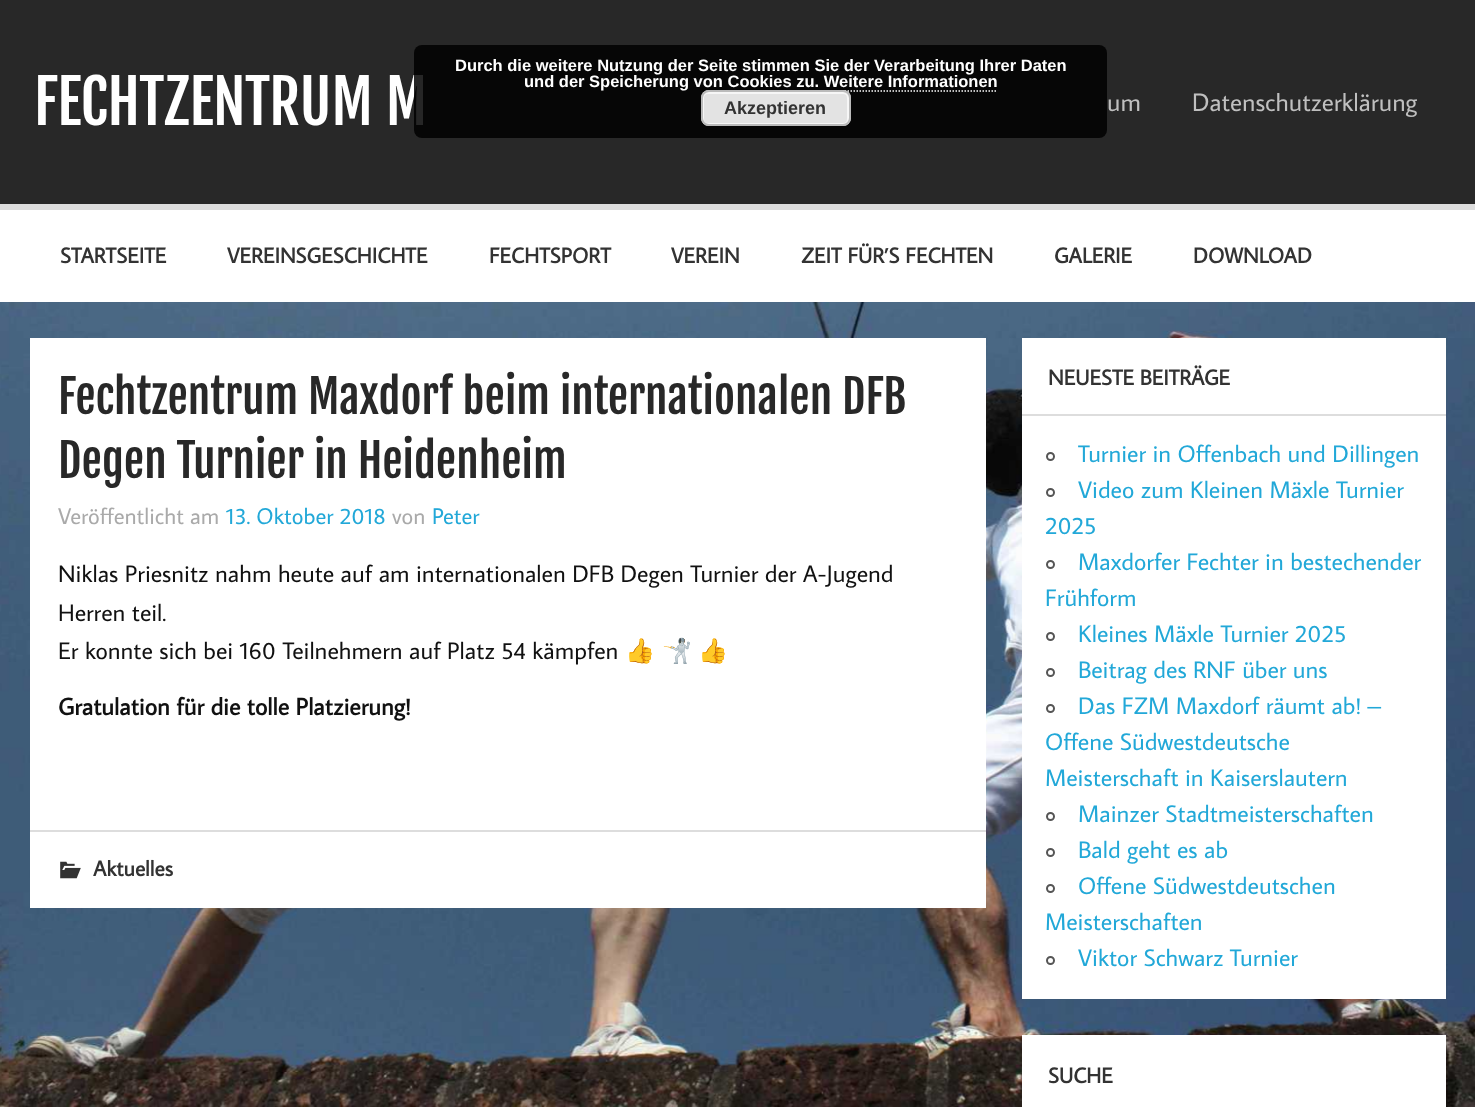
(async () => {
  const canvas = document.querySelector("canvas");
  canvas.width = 1475;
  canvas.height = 1107;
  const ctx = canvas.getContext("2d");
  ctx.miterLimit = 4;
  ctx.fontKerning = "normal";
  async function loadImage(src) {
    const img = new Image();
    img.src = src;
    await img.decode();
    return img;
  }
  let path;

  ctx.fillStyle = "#ffffff";
  ctx.fillRect(0, 0, 1475, 1107);
  ctx.drawImage(await loadImage("img/1.png"), 0, 302, 1475, 805);
  for (const [x, y, w, h, color] of [
    [0, 0, 1475, 204, "#282828"],
    [0, 204, 1475, 6, "#dddddd"],
    [30, 338, 956, 570, "#ffffff"],
    [30, 830, 956, 2, "#dddddd"],
  ]) {
    ctx.fillStyle = color;
    ctx.fillRect(x, y, w, h);
  }
  ctx.drawImage(await loadImage("img/2.png"), 60, 861, 21, 18);
  ctx.fillStyle = "#ffffff";
  ctx.fillRect(1022, 338, 424, 661);
  ctx.fillStyle = "#dddddd";
  ctx.fillRect(1022, 414, 424, 2);
  ctx.beginPath();
  ctx.arc(1050.5, 456.5, 3.5, 0, Math.PI * 2);
  ctx.strokeStyle = "#555555";
  ctx.lineWidth = 2;
  ctx.stroke();
  ctx.beginPath();
  ctx.arc(1050.5, 492.5, 3.5, 0, Math.PI * 2);
  ctx.stroke();
  ctx.beginPath();
  ctx.arc(1050.5, 564.5, 3.5, 0, Math.PI * 2);
  ctx.stroke();
  ctx.beginPath();
  ctx.arc(1050.5, 636.5, 3.5, 0, Math.PI * 2);
  ctx.stroke();
  ctx.beginPath();
  ctx.arc(1050.5, 672.5, 3.5, 0, Math.PI * 2);
  ctx.stroke();
  ctx.beginPath();
  ctx.arc(1050.5, 708.5, 3.5, 0, Math.PI * 2);
  ctx.stroke();
  ctx.beginPath();
  ctx.arc(1050.5, 816.5, 3.5, 0, Math.PI * 2);
  ctx.stroke();
  ctx.beginPath();
  ctx.arc(1050.5, 852.5, 3.5, 0, Math.PI * 2);
  ctx.stroke();
  ctx.beginPath();
  ctx.arc(1050.5, 888.5, 3.5, 0, Math.PI * 2);
  ctx.stroke();
  ctx.beginPath();
  ctx.arc(1050.5, 960.5, 3.5, 0, Math.PI * 2);
  ctx.stroke();
  ctx.fillStyle = "#ffffff";
  ctx.fillRect(1022, 1035, 424, 72);
  ctx.font = "60px Fjalla One";
  ctx.fillText("FECHTZENTRUM M", 34, 125);
  ctx.fillStyle = "rgba(0, 0, 0, 0.85)";
  ctx.beginPath();
  ctx.roundRect(414, 45, 693, 93, 8);
  ctx.fill();
  path = new Path2D("M823.5 91H997.5");
  ctx.strokeStyle = "#ffffff";
  ctx.lineWidth = 1.5;
  ctx.setLineDash([1.5, 1.5]);
  ctx.stroke(path);
  ctx.font = "bold 16.5px Liberation Sans";
  ctx.fillStyle = "#ffffff";
  ctx.fillText("und der Speicherung von Cookies zu. Weitere Informationen", 524, 87);
  ctx.fillStyle = "#e3e3e3";
  ctx.beginPath();
  ctx.roundRect(701, 90, 150, 36, 8);
  ctx.fill();
  ctx.beginPath();
  ctx.roundRect(703, 93, 145, 31, 5);
  ctx.strokeStyle = "#f6f6f6";
  ctx.lineWidth = 2;
  ctx.setLineDash([]);
  ctx.stroke();
  ctx.beginPath();
  ctx.roundRect(702, 91, 148, 34, 7);
  ctx.strokeStyle = "#bbbbbb";
  ctx.stroke();
  ctx.font = "bold 18px Liberation Sans";
  ctx.fillStyle = "#333333";
  ctx.fillText("Akzeptieren", 724, 114);
  ctx.font = "bold 16.5px Liberation Sans";
  ctx.fillStyle = "#ffffff";
  ctx.fillText("Durch die weitere Nutzung der Seite stimmen Sie der Verarbeitung Ihrer Daten", 455, 71);
  ctx.font = "25.25px Average Sans";
  ctx.fillStyle = "#bfbfbf";
  ctx.fillText("um", 1107, 111);
  ctx.fillText("Datenschutzerklärung", 1192, 111);
  ctx.font = "bold 21.5px Average Sans";
  ctx.fillStyle = "#333333";
  for (const [text, x, y] of [
    ["STARTSEITE", 60, 263],
    ["VEREINSGESCHICHTE", 227, 263],
    ["FECHTSPORT", 489, 263],
    ["VEREIN", 671, 263],
    ["ZEIT FÜR’S FECHTEN", 801, 263],
    ["GALERIE", 1054, 263],
    ["DOWNLOAD", 1193, 263],
  ]) {
    ctx.fillText(text, x, y);
  }
  ctx.font = "45.6px Fjalla One";
  ctx.fillStyle = "#282828";
  ctx.fillText("Fechtzentrum Maxdorf beim internationalen DFB", 58, 414);
  ctx.fillText("Degen Turnier in Heidenheim", 58, 478);
  ctx.font = "22.75px Average Sans";
  ctx.fillStyle = "#aaaaaa";
  ctx.fillText("Veröffentlicht am", 58, 524);
  ctx.fillStyle = "#22a8d8";
  ctx.fillText("13. Oktober 2018", 226, 524);
  ctx.fillStyle = "#aaaaaa";
  ctx.fillText("von", 392, 524);
  ctx.fillStyle = "#22a8d8";
  ctx.fillText("Peter", 432, 524);
  ctx.font = "24px Average Sans";
  ctx.fillStyle = "#111111";
  for (const [text, x, y] of [
    ["Niklas Priesnitz nahm heute auf am internationalen DFB Degen Turnier der A-Jugend", 58, 582],
    ["Herren teil.", 58, 621],
    ["Er konnte sich bei 160 Teilnehmern auf Platz 54 kämpfen", 58, 659],
  ]) {
    ctx.fillText(text, x, y);
  }
  ctx.font = "24px Noto Color Emoji";
  for (const [text, x, y] of [
    ["👍", 625, 659],
    ["🤺", 662, 659],
    ["👍", 698, 659],
  ]) {
    ctx.fillText(text, x, y);
  }
  ctx.font = "bold 24px Average Sans";
  ctx.fillText("Gratulation für die tolle Platzierung!", 58, 715);
  ctx.font = "bold 21.5px Average Sans";
  ctx.fillStyle = "#333333";
  ctx.fillText("Aktuelles", 93, 876);
  ctx.fillText("NEUESTE BEITRÄGE", 1048, 385);
  ctx.font = "24px Average Sans";
  ctx.fillStyle = "#22a8d8";
  for (const [text, x, y] of [
    ["Turnier in Offenbach und Dillingen", 1078, 462],
    ["Video zum Kleinen Mäxle Turnier", 1078, 498],
    ["2025", 1045, 534],
    ["Maxdorfer Fechter in bestechender", 1078, 570],
    ["Frühform", 1045, 606],
    ["Kleines Mäxle Turnier 2025", 1078, 642],
    ["Beitrag des RNF über uns", 1078, 678],
    ["Das FZM Maxdorf räumt ab! –", 1078, 714],
    ["Offene Südwestdeutsche", 1045, 750],
    ["Meisterschaft in Kaiserslautern", 1045, 786],
    ["Mainzer Stadtmeisterschaften", 1078, 822],
    ["Bald geht es ab", 1078, 858],
    ["Offene Südwestdeutschen", 1078, 894],
    ["Meisterschaften", 1045, 930],
    ["Viktor Schwarz Turnier", 1078, 966],
  ]) {
    ctx.fillText(text, x, y);
  }
  ctx.font = "bold 21.5px Average Sans";
  ctx.fillStyle = "#333333";
  ctx.fillText("SUCHE", 1048, 1083);
})();
